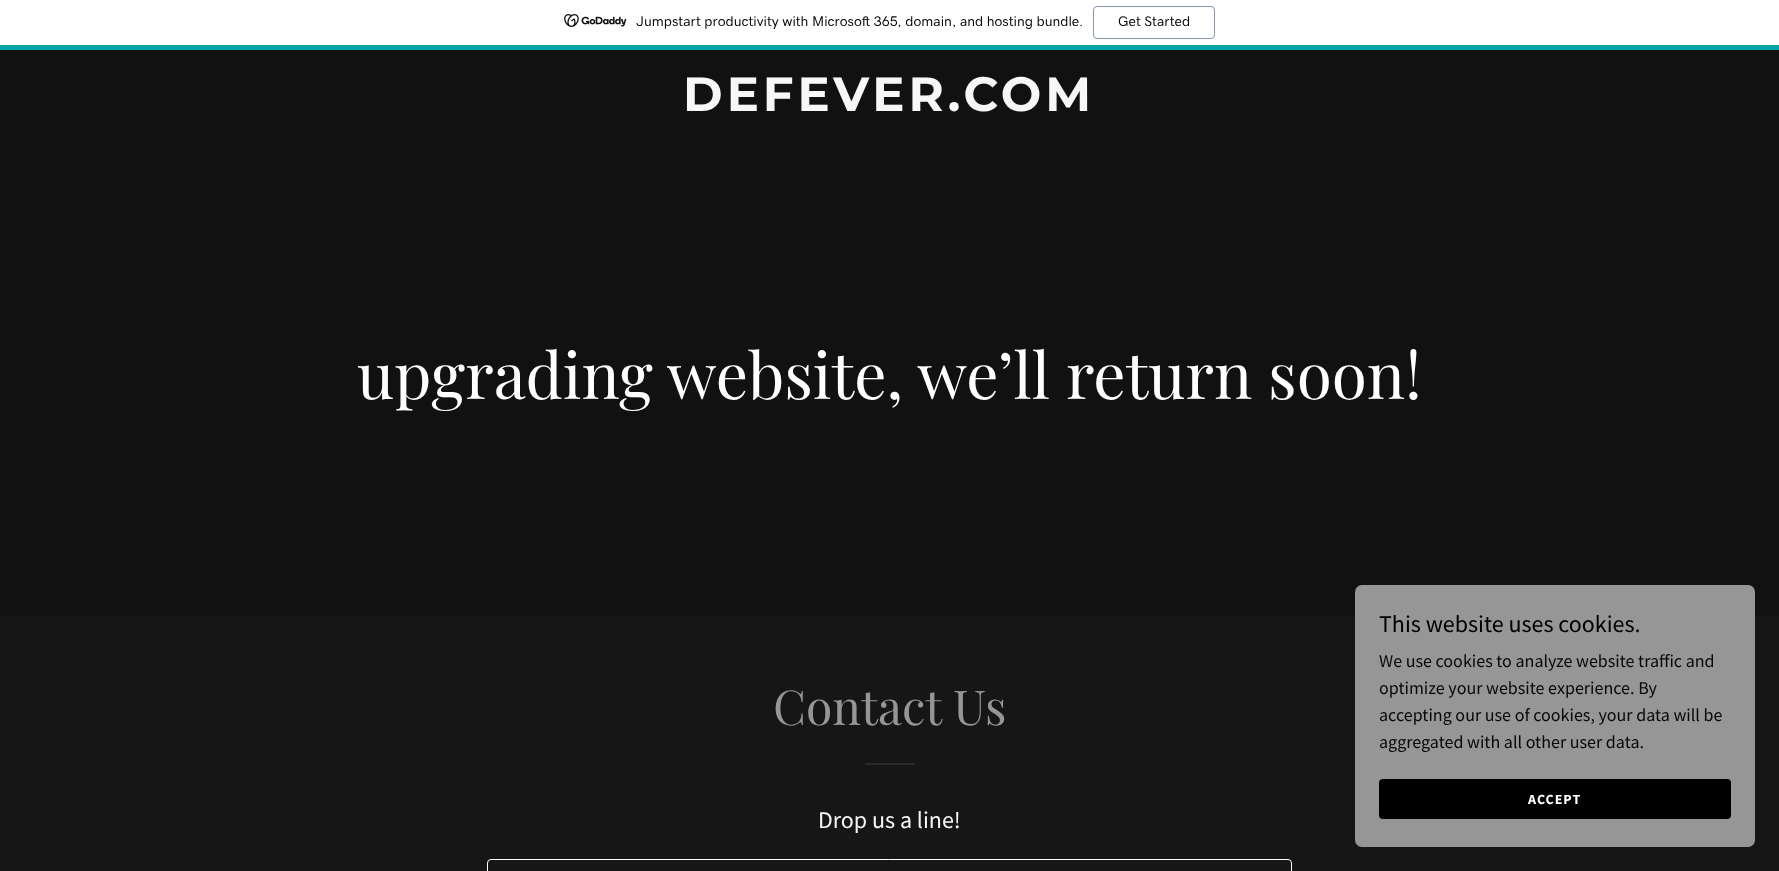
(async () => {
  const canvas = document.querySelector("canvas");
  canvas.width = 1779;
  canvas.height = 871;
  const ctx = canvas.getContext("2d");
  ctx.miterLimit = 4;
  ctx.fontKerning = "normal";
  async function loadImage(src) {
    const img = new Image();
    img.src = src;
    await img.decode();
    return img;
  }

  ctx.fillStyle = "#161616";
  ctx.fillRect(0, 0, 1779, 871);
  ctx.fillStyle = "#ffffff";
  ctx.fillRect(0, 0, 1779, 45);
  ctx.fillStyle = "#00a4a6";
  ctx.fillRect(0, 45, 1779, 5);
  ctx.drawImage(await loadImage("img/1.png"), 564, 14, 63, 13);
  ctx.beginPath();
  ctx.roundRect(1093.5, 6.5, 121, 32, 3.5);
  ctx.strokeStyle = "#8995a9";
  ctx.stroke();
  ctx.fillStyle = "#111111";
  ctx.fillRect(0, 50, 1779, 566);
  ctx.fillStyle = "#2a2a2a";
  ctx.fillRect(865, 763, 50, 2);
  ctx.beginPath();
  ctx.roundRect(487.5, 859.5, 804, 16, 3.5);
  ctx.strokeStyle = "#ffffff";
  ctx.stroke();
  ctx.fillStyle = "#969696";
  ctx.beginPath();
  ctx.roundRect(1355, 585, 400, 262, 7);
  ctx.fill();
  ctx.fillStyle = "#000000";
  ctx.beginPath();
  ctx.roundRect(1379, 779, 352, 40, 4);
  ctx.fill();
  ctx.font = "500 14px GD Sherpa";
  ctx.fillText("Jumpstart productivity with Microsoft 365, domain, and hosting bundle.", 636, 26);
  ctx.fillText("Get Started", 1118, 26);
  ctx.letterSpacing = "4px";
  ctx.font = "bold 48px Montserrat";
  ctx.fillStyle = "#f7f7f7";
  ctx.fillText("DEFEVER.COM", 683, 111);
  ctx.letterSpacing = "0px";
  ctx.font = "64px Playfair Display";
  ctx.fillStyle = "#ffffff";
  ctx.fillText("upgrading website, we’ll return soon!", 357, 399);
  ctx.font = "48px Playfair Display";
  ctx.fillStyle = "#969696";
  ctx.fillText("Contact Us", 773, 725);
  ctx.font = "24px Source Sans Pro";
  ctx.fillStyle = "#f7f7f7";
  ctx.fillText("Drop us a line!", 818, 828);
  ctx.fillStyle = "#000000";
  ctx.fillText("This website uses cookies.", 1379, 632);
  ctx.font = "18px Source Sans Pro";
  ctx.fillStyle = "#080808";
  for (const [text, x, y] of [
    ["We use cookies to analyze website traffic and", 1379, 667],
    ["optimize your website experience. By", 1379, 694],
    ["accepting our use of cookies, your data will be", 1379, 721],
    ["aggregated with all other user data.", 1379, 748],
  ]) {
    ctx.fillText(text, x, y);
  }
  ctx.letterSpacing = "1px";
  ctx.font = "bold 14px Source Sans Pro";
  ctx.fillStyle = "#ffffff";
  ctx.fillText("ACCEPT", 1528, 804);
})();
